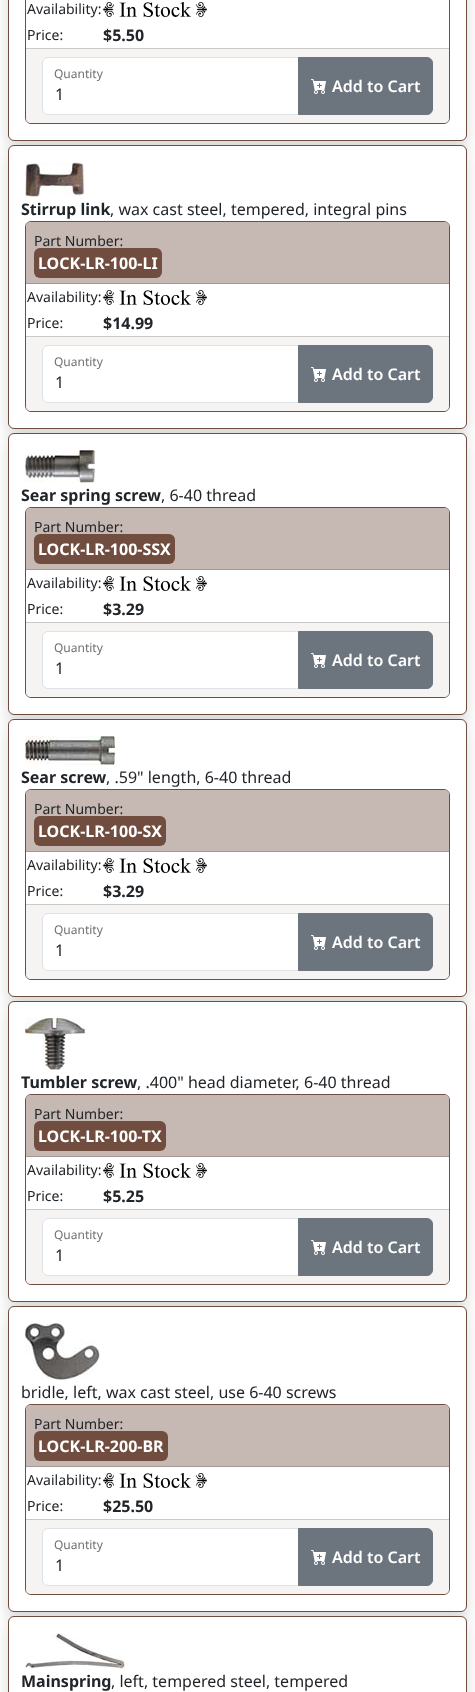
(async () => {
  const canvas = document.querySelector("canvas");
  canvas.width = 475;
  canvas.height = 1692;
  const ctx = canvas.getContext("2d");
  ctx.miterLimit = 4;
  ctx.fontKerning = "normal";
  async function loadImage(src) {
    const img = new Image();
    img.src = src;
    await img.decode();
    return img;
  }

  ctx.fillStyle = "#ffffff";
  ctx.fillRect(0, 0, 475, 1692);
  ctx.fillStyle = "rgba(0, 0, 0, 0.15)";
  ctx.filter = "blur(8px)";
  ctx.beginPath();
  ctx.roundRect(8, -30, 459, 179, 6);
  ctx.fill();
  ctx.filter = "none";
  ctx.fillStyle = "#ffffff";
  ctx.beginPath();
  ctx.roundRect(8.5, -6.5, 458, 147, 5.5);
  ctx.fill();
  ctx.strokeStyle = "#704d3e";
  ctx.stroke();
  ctx.beginPath();
  ctx.roundRect(25.5, -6.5, 424, 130, 5.5);
  ctx.stroke();
  ctx.drawImage(await loadImage("img/1.png"), 103, 2, 104, 15);
  ctx.fillStyle = "#f6f4f3";
  ctx.beginPath();
  ctx.roundRect(26, 48, 423, 75, [0, 0, 5, 5]);
  ctx.fill();
  ctx.fillStyle = "#cbc9c8";
  ctx.fillRect(26, 48, 423, 1);
  ctx.fillStyle = "#ffffff";
  ctx.beginPath();
  ctx.roundRect(42.5, 57.5, 256, 57, [5.5, 0, 0, 5.5]);
  ctx.fill();
  ctx.strokeStyle = "#dee2e6";
  ctx.stroke();
  ctx.fillStyle = "#6c757d";
  ctx.beginPath();
  ctx.roundRect(298.5, 57.5, 134, 57, [0, 5.5, 5.5, 0]);
  ctx.fill();
  ctx.strokeStyle = "#6c757d";
  ctx.stroke();
  ctx.drawImage(await loadImage("img/2.png"), 311, 79, 15, 15);
  ctx.fillStyle = "rgba(0, 0, 0, 0.15)";
  ctx.filter = "blur(8px)";
  ctx.beginPath();
  ctx.roundRect(8, 153, 459, 284, 6);
  ctx.fill();
  ctx.filter = "none";
  ctx.fillStyle = "#ffffff";
  ctx.beginPath();
  ctx.roundRect(8.5, 145.5, 458, 283, 5.5);
  ctx.fill();
  ctx.strokeStyle = "#704d3e";
  ctx.stroke();
  ctx.drawImage(await loadImage("img/3.png"), 25, 162, 60, 35);
  ctx.beginPath();
  ctx.roundRect(25.5, 221.5, 424, 190, 5.5);
  ctx.stroke();
  ctx.fillStyle = "#c6b8b2";
  ctx.beginPath();
  ctx.roundRect(26, 222, 423, 62, [5, 5, 0, 0]);
  ctx.fill();
  ctx.fillStyle = "#a39893";
  ctx.fillRect(26, 283, 423, 1);
  ctx.fillStyle = "#704d3e";
  ctx.beginPath();
  ctx.roundRect(34, 248, 128, 30, 6);
  ctx.fill();
  ctx.drawImage(await loadImage("img/1.png"), 103, 290, 104, 15);
  ctx.fillStyle = "#f6f4f3";
  ctx.beginPath();
  ctx.roundRect(26, 336, 423, 75, [0, 0, 5, 5]);
  ctx.fill();
  ctx.fillStyle = "#cbc9c8";
  ctx.fillRect(26, 336, 423, 1);
  ctx.fillStyle = "#ffffff";
  ctx.beginPath();
  ctx.roundRect(42.5, 345.5, 256, 57, [5.5, 0, 0, 5.5]);
  ctx.fill();
  ctx.strokeStyle = "#dee2e6";
  ctx.stroke();
  ctx.fillStyle = "#6c757d";
  ctx.beginPath();
  ctx.roundRect(298.5, 345.5, 134, 57, [0, 5.5, 5.5, 0]);
  ctx.fill();
  ctx.strokeStyle = "#6c757d";
  ctx.stroke();
  ctx.drawImage(await loadImage("img/2.png"), 311, 367, 15, 15);
  ctx.fillStyle = "rgba(0, 0, 0, 0.15)";
  ctx.filter = "blur(8px)";
  ctx.beginPath();
  ctx.roundRect(8, 441, 459, 282, 6);
  ctx.fill();
  ctx.filter = "none";
  ctx.fillStyle = "#ffffff";
  ctx.beginPath();
  ctx.roundRect(8.5, 433.5, 458, 281, 5.5);
  ctx.fill();
  ctx.strokeStyle = "#704d3e";
  ctx.stroke();
  ctx.drawImage(await loadImage("img/4.png"), 25, 450, 70, 33);
  ctx.beginPath();
  ctx.roundRect(25.5, 507.5, 424, 190, 5.5);
  ctx.stroke();
  ctx.fillStyle = "#c6b8b2";
  ctx.beginPath();
  ctx.roundRect(26, 508, 423, 62, [5, 5, 0, 0]);
  ctx.fill();
  ctx.fillStyle = "#a39893";
  ctx.fillRect(26, 569, 423, 1);
  ctx.fillStyle = "#704d3e";
  ctx.beginPath();
  ctx.roundRect(34, 534, 141, 30, 6);
  ctx.fill();
  ctx.drawImage(await loadImage("img/1.png"), 103, 576, 104, 15);
  ctx.fillStyle = "#f6f4f3";
  ctx.beginPath();
  ctx.roundRect(26, 622, 423, 75, [0, 0, 5, 5]);
  ctx.fill();
  ctx.fillStyle = "#cbc9c8";
  ctx.fillRect(26, 622, 423, 1);
  ctx.fillStyle = "#ffffff";
  ctx.beginPath();
  ctx.roundRect(42.5, 631.5, 256, 57, [5.5, 0, 0, 5.5]);
  ctx.fill();
  ctx.strokeStyle = "#dee2e6";
  ctx.stroke();
  ctx.fillStyle = "#6c757d";
  ctx.beginPath();
  ctx.roundRect(298.5, 631.5, 134, 57, [0, 5.5, 5.5, 0]);
  ctx.fill();
  ctx.strokeStyle = "#6c757d";
  ctx.stroke();
  ctx.drawImage(await loadImage("img/2.png"), 311, 653, 15, 15);
  ctx.fillStyle = "rgba(0, 0, 0, 0.15)";
  ctx.filter = "blur(8px)";
  ctx.beginPath();
  ctx.roundRect(8, 727, 459, 278, 6);
  ctx.fill();
  ctx.filter = "none";
  ctx.fillStyle = "#ffffff";
  ctx.beginPath();
  ctx.roundRect(8.5, 719.5, 458, 277, 5.5);
  ctx.fill();
  ctx.strokeStyle = "#704d3e";
  ctx.stroke();
  ctx.drawImage(await loadImage("img/5.png"), 25, 736, 90, 29);
  ctx.beginPath();
  ctx.roundRect(25.5, 789.5, 424, 190, 5.5);
  ctx.stroke();
  ctx.fillStyle = "#c6b8b2";
  ctx.beginPath();
  ctx.roundRect(26, 790, 423, 62, [5, 5, 0, 0]);
  ctx.fill();
  ctx.fillStyle = "#a39893";
  ctx.fillRect(26, 851, 423, 1);
  ctx.fillStyle = "#704d3e";
  ctx.beginPath();
  ctx.roundRect(34, 816, 132, 30, 6);
  ctx.fill();
  ctx.drawImage(await loadImage("img/1.png"), 103, 858, 104, 15);
  ctx.fillStyle = "#f6f4f3";
  ctx.beginPath();
  ctx.roundRect(26, 904, 423, 75, [0, 0, 5, 5]);
  ctx.fill();
  ctx.fillStyle = "#cbc9c8";
  ctx.fillRect(26, 904, 423, 1);
  ctx.fillStyle = "#ffffff";
  ctx.beginPath();
  ctx.roundRect(42.5, 913.5, 256, 57, [5.5, 0, 0, 5.5]);
  ctx.fill();
  ctx.strokeStyle = "#dee2e6";
  ctx.stroke();
  ctx.fillStyle = "#6c757d";
  ctx.beginPath();
  ctx.roundRect(298.5, 913.5, 134, 57, [0, 5.5, 5.5, 0]);
  ctx.fill();
  ctx.strokeStyle = "#6c757d";
  ctx.stroke();
  ctx.drawImage(await loadImage("img/2.png"), 311, 935, 15, 15);
  ctx.fillStyle = "rgba(0, 0, 0, 0.15)";
  ctx.filter = "blur(8px)";
  ctx.beginPath();
  ctx.roundRect(8, 1009, 459, 301, 6);
  ctx.fill();
  ctx.filter = "none";
  ctx.fillStyle = "#ffffff";
  ctx.beginPath();
  ctx.roundRect(8.5, 1001.5, 458, 300, 5.5);
  ctx.fill();
  ctx.strokeStyle = "#704d3e";
  ctx.stroke();
  ctx.drawImage(await loadImage("img/6.png"), 25, 1018, 60, 52);
  ctx.beginPath();
  ctx.roundRect(25.5, 1094.5, 424, 190, 5.5);
  ctx.stroke();
  ctx.fillStyle = "#c6b8b2";
  ctx.beginPath();
  ctx.roundRect(26, 1095, 423, 62, [5, 5, 0, 0]);
  ctx.fill();
  ctx.fillStyle = "#a39893";
  ctx.fillRect(26, 1156, 423, 1);
  ctx.fillStyle = "#704d3e";
  ctx.beginPath();
  ctx.roundRect(34, 1121, 132, 30, 6);
  ctx.fill();
  ctx.drawImage(await loadImage("img/1.png"), 103, 1163, 104, 15);
  ctx.fillStyle = "#f6f4f3";
  ctx.beginPath();
  ctx.roundRect(26, 1209, 423, 75, [0, 0, 5, 5]);
  ctx.fill();
  ctx.fillStyle = "#cbc9c8";
  ctx.fillRect(26, 1209, 423, 1);
  ctx.fillStyle = "#ffffff";
  ctx.beginPath();
  ctx.roundRect(42.5, 1218.5, 256, 57, [5.5, 0, 0, 5.5]);
  ctx.fill();
  ctx.strokeStyle = "#dee2e6";
  ctx.stroke();
  ctx.fillStyle = "#6c757d";
  ctx.beginPath();
  ctx.roundRect(298.5, 1218.5, 134, 57, [0, 5.5, 5.5, 0]);
  ctx.fill();
  ctx.strokeStyle = "#6c757d";
  ctx.stroke();
  ctx.drawImage(await loadImage("img/2.png"), 311, 1240, 15, 15);
  ctx.fillStyle = "rgba(0, 0, 0, 0.15)";
  ctx.filter = "blur(8px)";
  ctx.beginPath();
  ctx.roundRect(8, 1314, 459, 306, 6);
  ctx.fill();
  ctx.filter = "none";
  ctx.fillStyle = "#ffffff";
  ctx.beginPath();
  ctx.roundRect(8.5, 1306.5, 458, 305, 5.5);
  ctx.fill();
  ctx.strokeStyle = "#704d3e";
  ctx.stroke();
  ctx.drawImage(await loadImage("img/7.png"), 25, 1323, 75, 57);
  ctx.beginPath();
  ctx.roundRect(25.5, 1404.5, 424, 190, 5.5);
  ctx.stroke();
  ctx.fillStyle = "#c6b8b2";
  ctx.beginPath();
  ctx.roundRect(26, 1405, 423, 62, [5, 5, 0, 0]);
  ctx.fill();
  ctx.fillStyle = "#a39893";
  ctx.fillRect(26, 1466, 423, 1);
  ctx.fillStyle = "#704d3e";
  ctx.beginPath();
  ctx.roundRect(34, 1431, 134, 30, 6);
  ctx.fill();
  ctx.drawImage(await loadImage("img/1.png"), 103, 1473, 104, 15);
  ctx.fillStyle = "#f6f4f3";
  ctx.beginPath();
  ctx.roundRect(26, 1519, 423, 75, [0, 0, 5, 5]);
  ctx.fill();
  ctx.fillStyle = "#cbc9c8";
  ctx.fillRect(26, 1519, 423, 1);
  ctx.fillStyle = "#ffffff";
  ctx.beginPath();
  ctx.roundRect(42.5, 1528.5, 256, 57, [5.5, 0, 0, 5.5]);
  ctx.fill();
  ctx.strokeStyle = "#dee2e6";
  ctx.stroke();
  ctx.fillStyle = "#6c757d";
  ctx.beginPath();
  ctx.roundRect(298.5, 1528.5, 134, 57, [0, 5.5, 5.5, 0]);
  ctx.fill();
  ctx.strokeStyle = "#6c757d";
  ctx.stroke();
  ctx.drawImage(await loadImage("img/2.png"), 311, 1550, 15, 15);
  ctx.fillStyle = "rgba(0, 0, 0, 0.15)";
  ctx.filter = "blur(8px)";
  ctx.beginPath();
  ctx.roundRect(8, 1624, 459, 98, 6);
  ctx.fill();
  ctx.filter = "none";
  ctx.fillStyle = "#ffffff";
  ctx.beginPath();
  ctx.roundRect(8.5, 1616.5, 458, 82, 5.5);
  ctx.fill();
  ctx.strokeStyle = "#704d3e";
  ctx.stroke();
  ctx.drawImage(await loadImage("img/8.png"), 25, 1633, 100, 36);
  ctx.font = "14px Noto Sans";
  ctx.fillStyle = "#212529";
  ctx.fillText("Availability:", 27, 14);
  ctx.fillText("Price:", 27, 40);
  ctx.font = "bold 16px Noto Sans";
  ctx.fillText("$5.50", 103, 41);
  ctx.font = "12px Noto Sans";
  ctx.fillStyle = "#6f7174";
  ctx.fillText("Quantity", 54, 78);
  ctx.font = "16px Noto Sans";
  ctx.fillStyle = "#212529";
  ctx.fillText("1", 55, 100);
  ctx.font = "600 16px Noto Sans";
  ctx.fillStyle = "#ffffff";
  ctx.fillText("Add to Cart", 332, 92);
  ctx.font = "bold 16px Noto Sans";
  ctx.fillStyle = "#212529";
  ctx.fillText("Stirrup link", 21, 215);
  ctx.font = "16px Noto Sans";
  ctx.fillText(", wax cast steel, tempered, integral pins", 110, 215);
  ctx.font = "14px Noto Sans";
  ctx.fillText("Part Number:", 34, 246);
  ctx.font = "bold 16px Noto Sans";
  ctx.fillStyle = "#ffffff";
  ctx.fillText("LOCK-LR-100-LI", 38, 269);
  ctx.font = "14px Noto Sans";
  ctx.fillStyle = "#212529";
  ctx.fillText("Availability:", 27, 302);
  ctx.fillText("Price:", 27, 328);
  ctx.font = "bold 16px Noto Sans";
  ctx.fillText("$14.99", 103, 329);
  ctx.font = "12px Noto Sans";
  ctx.fillStyle = "#6f7174";
  ctx.fillText("Quantity", 54, 366);
  ctx.font = "16px Noto Sans";
  ctx.fillStyle = "#212529";
  ctx.fillText("1", 55, 388);
  ctx.font = "600 16px Noto Sans";
  ctx.fillStyle = "#ffffff";
  ctx.fillText("Add to Cart", 332, 380);
  ctx.font = "bold 16px Noto Sans";
  ctx.fillStyle = "#212529";
  ctx.fillText("Sear spring screw", 21, 501);
  ctx.font = "16px Noto Sans";
  ctx.fillText(", 6-40 thread", 161, 501);
  ctx.font = "14px Noto Sans";
  ctx.fillText("Part Number:", 34, 532);
  ctx.font = "bold 16px Noto Sans";
  ctx.fillStyle = "#ffffff";
  ctx.fillText("LOCK-LR-100-SSX", 38, 555);
  ctx.font = "14px Noto Sans";
  ctx.fillStyle = "#212529";
  ctx.fillText("Availability:", 27, 588);
  ctx.fillText("Price:", 27, 614);
  ctx.font = "bold 16px Noto Sans";
  ctx.fillText("$3.29", 103, 615);
  ctx.font = "12px Noto Sans";
  ctx.fillStyle = "#6f7174";
  ctx.fillText("Quantity", 54, 652);
  ctx.font = "16px Noto Sans";
  ctx.fillStyle = "#212529";
  ctx.fillText("1", 55, 674);
  ctx.font = "600 16px Noto Sans";
  ctx.fillStyle = "#ffffff";
  ctx.fillText("Add to Cart", 332, 666);
  ctx.font = "bold 16px Noto Sans";
  ctx.fillStyle = "#212529";
  ctx.fillText("Sear screw", 21, 783);
  ctx.font = "16px Noto Sans";
  ctx.fillText(", .59\" length, 6-40 thread", 106, 783);
  ctx.font = "14px Noto Sans";
  ctx.fillText("Part Number:", 34, 814);
  ctx.font = "bold 16px Noto Sans";
  ctx.fillStyle = "#ffffff";
  ctx.fillText("LOCK-LR-100-SX", 38, 837);
  ctx.font = "14px Noto Sans";
  ctx.fillStyle = "#212529";
  ctx.fillText("Availability:", 27, 870);
  ctx.fillText("Price:", 27, 896);
  ctx.font = "bold 16px Noto Sans";
  ctx.fillText("$3.29", 103, 897);
  ctx.font = "12px Noto Sans";
  ctx.fillStyle = "#6f7174";
  ctx.fillText("Quantity", 54, 934);
  ctx.font = "16px Noto Sans";
  ctx.fillStyle = "#212529";
  ctx.fillText("1", 55, 956);
  ctx.font = "600 16px Noto Sans";
  ctx.fillStyle = "#ffffff";
  ctx.fillText("Add to Cart", 332, 948);
  ctx.font = "bold 16px Noto Sans";
  ctx.fillStyle = "#212529";
  ctx.fillText("Tumbler screw", 21, 1088);
  ctx.font = "16px Noto Sans";
  ctx.fillText(", .400\" head diameter, 6-40 thread", 137, 1088);
  ctx.font = "14px Noto Sans";
  ctx.fillText("Part Number:", 34, 1119);
  ctx.font = "bold 16px Noto Sans";
  ctx.fillStyle = "#ffffff";
  ctx.fillText("LOCK-LR-100-TX", 38, 1142);
  ctx.font = "14px Noto Sans";
  ctx.fillStyle = "#212529";
  ctx.fillText("Availability:", 27, 1175);
  ctx.fillText("Price:", 27, 1201);
  ctx.font = "bold 16px Noto Sans";
  ctx.fillText("$5.25", 103, 1202);
  ctx.font = "12px Noto Sans";
  ctx.fillStyle = "#6f7174";
  ctx.fillText("Quantity", 54, 1239);
  ctx.font = "16px Noto Sans";
  ctx.fillStyle = "#212529";
  ctx.fillText("1", 55, 1261);
  ctx.font = "600 16px Noto Sans";
  ctx.fillStyle = "#ffffff";
  ctx.fillText("Add to Cart", 332, 1253);
  ctx.font = "16px Noto Sans";
  ctx.fillStyle = "#212529";
  ctx.fillText("bridle, left, wax cast steel, use 6-40 screws", 21, 1398);
  ctx.font = "14px Noto Sans";
  ctx.fillText("Part Number:", 34, 1429);
  ctx.font = "bold 16px Noto Sans";
  ctx.fillStyle = "#ffffff";
  ctx.fillText("LOCK-LR-200-BR", 38, 1452);
  ctx.font = "14px Noto Sans";
  ctx.fillStyle = "#212529";
  ctx.fillText("Availability:", 27, 1485);
  ctx.fillText("Price:", 27, 1511);
  ctx.font = "bold 16px Noto Sans";
  ctx.fillText("$25.50", 103, 1512);
  ctx.font = "12px Noto Sans";
  ctx.fillStyle = "#6f7174";
  ctx.fillText("Quantity", 54, 1549);
  ctx.font = "16px Noto Sans";
  ctx.fillStyle = "#212529";
  ctx.fillText("1", 55, 1571);
  ctx.font = "600 16px Noto Sans";
  ctx.fillStyle = "#ffffff";
  ctx.fillText("Add to Cart", 332, 1563);
  ctx.font = "bold 16px Noto Sans";
  ctx.fillStyle = "#212529";
  ctx.fillText("Mainspring", 21, 1687);
  ctx.font = "16px Noto Sans";
  ctx.fillText(", left, tempered steel, tempered", 111, 1687);
})();
